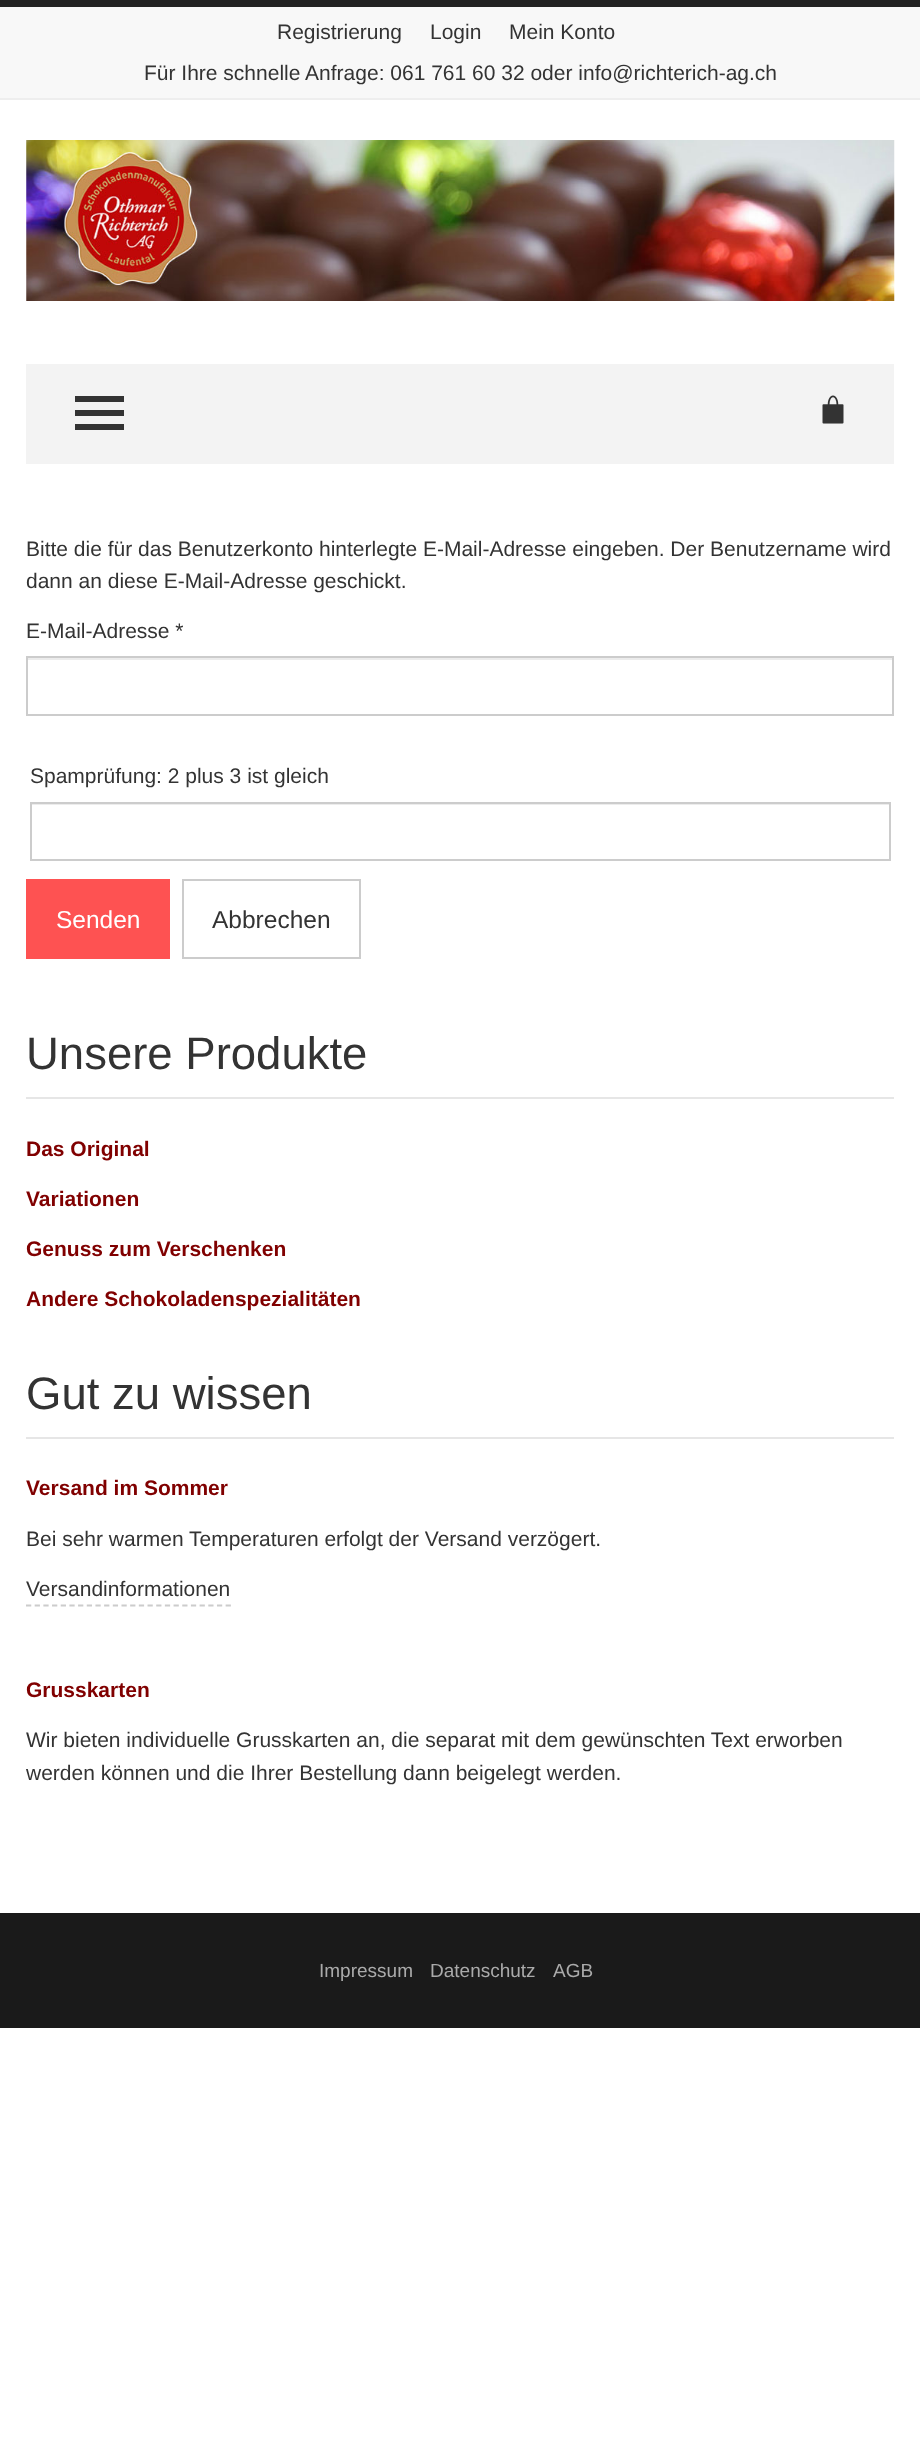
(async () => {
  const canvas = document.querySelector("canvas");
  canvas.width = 920;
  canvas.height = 2455;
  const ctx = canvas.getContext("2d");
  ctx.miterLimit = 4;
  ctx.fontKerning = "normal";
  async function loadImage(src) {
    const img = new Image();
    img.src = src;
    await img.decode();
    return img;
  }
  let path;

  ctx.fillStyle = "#ffffff";
  ctx.fillRect(0, 0, 920, 2455);
  for (const [x, y, w, h, color] of [
    [0, 7, 920, 91, "#f8f8f8"],
    [0, 0, 920, 7, "#222222"],
    [0, 98, 920, 2, "#eeeeee"],
  ]) {
    ctx.fillStyle = color;
    ctx.fillRect(x, y, w, h);
  }
  ctx.drawImage(await loadImage("img/1.png"), 26, 140, 869, 161);
  ctx.fillStyle = "#f3f3f3";
  ctx.fillRect(26, 364, 868, 100);
  ctx.fillStyle = "#333333";
  path = new Path2D("M75 396H124V402H75ZM75 410H124V416H75ZM75 424H124V430H75Z");
  ctx.fill(path);
  ctx.drawImage(await loadImage("img/2.png"), 822, 395, 22, 29);
  ctx.fillStyle = "#ececec";
  ctx.fillRect(28, 658, 865, 2);
  ctx.strokeStyle = "#cccccc";
  ctx.lineWidth = 2;
  ctx.strokeRect(27, 657, 866, 58);
  ctx.fillRect(32, 804, 857, 1);
  ctx.strokeRect(31, 803, 859, 57);
  ctx.fillStyle = "#fe5252";
  ctx.fillRect(26, 879, 144, 80);
  ctx.strokeRect(183, 880, 177, 78);
  ctx.fillStyle = "#e6e6e6";
  ctx.fillRect(26, 1097, 868, 2);
  ctx.fillRect(26, 1437, 868, 2);
  path = new Path2D("M26 1605.5H231");
  ctx.lineWidth = 1.8;
  ctx.setLineDash([5.25, 3.43]);
  ctx.stroke(path);
  ctx.fillStyle = "#1a1a1a";
  ctx.fillRect(0, 1913, 920, 115);
  ctx.font = "21px Liberation Sans";
  ctx.fillStyle = "#333333";
  for (const [text, x, y] of [
    ["Registrierung", 277, 39],
    ["Login", 430, 39],
    ["Mein Konto", 509, 39],
    ["Für Ihre schnelle Anfrage: 061 761 60 32 oder info@richterich-ag.ch", 144, 80],
    ["Bitte die für das Benutzerkonto hinterlegte E-Mail-Adresse eingeben. Der Benutzername wird", 26, 556],
    ["dann an diese E-Mail-Adresse geschickt.", 26, 588],
    ["E-Mail-Adresse *", 26, 638],
    ["Spamprüfung: 2 plus 3 ist gleich", 30, 783],
  ]) {
    ctx.fillText(text, x, y);
  }
  ctx.font = "24.5px Liberation Sans";
  ctx.fillStyle = "#ffffff";
  ctx.fillText("Senden", 56, 928);
  ctx.fillStyle = "#333333";
  ctx.fillText("Abbrechen", 212, 928);
  ctx.font = "45.5px Liberation Sans";
  ctx.fillText("Unsere Produkte", 26, 1069);
  ctx.font = "bold 21px Liberation Sans";
  ctx.fillStyle = "#800000";
  for (const [text, x, y] of [
    ["Das Original", 26, 1156],
    ["Variationen", 26, 1206],
    ["Genuss zum Verschenken", 26, 1256],
    ["Andere Schokoladenspezialitäten", 26, 1306],
  ]) {
    ctx.fillText(text, x, y);
  }
  ctx.font = "45.5px Liberation Sans";
  ctx.fillStyle = "#333333";
  ctx.fillText("Gut zu wissen", 26, 1409);
  ctx.font = "bold 21px Liberation Sans";
  ctx.fillStyle = "#800000";
  ctx.fillText("Versand im Sommer", 26, 1495);
  ctx.font = "21px Liberation Sans";
  ctx.fillStyle = "#333333";
  ctx.fillText("Bei sehr warmen Temperaturen erfolgt der Versand verzögert.", 26, 1546);
  ctx.fillText("Versandinformationen", 26, 1596);
  ctx.font = "bold 21px Liberation Sans";
  ctx.fillStyle = "#800000";
  ctx.fillText("Grusskarten", 26, 1697);
  ctx.font = "21px Liberation Sans";
  ctx.fillStyle = "#333333";
  ctx.fillText("Wir bieten individuelle Grusskarten an, die separat mit dem gewünschten Text erworben", 26, 1747);
  ctx.fillText("werden können und die Ihrer Bestellung dann beigelegt werden.", 26, 1780);
  ctx.font = "19px Liberation Sans";
  ctx.fillStyle = "#aaaaaa";
  for (const [text, x, y] of [
    ["Impressum", 319, 1977],
    ["Datenschutz", 430, 1977],
    ["AGB", 553, 1977],
  ]) {
    ctx.fillText(text, x, y);
  }
})();
